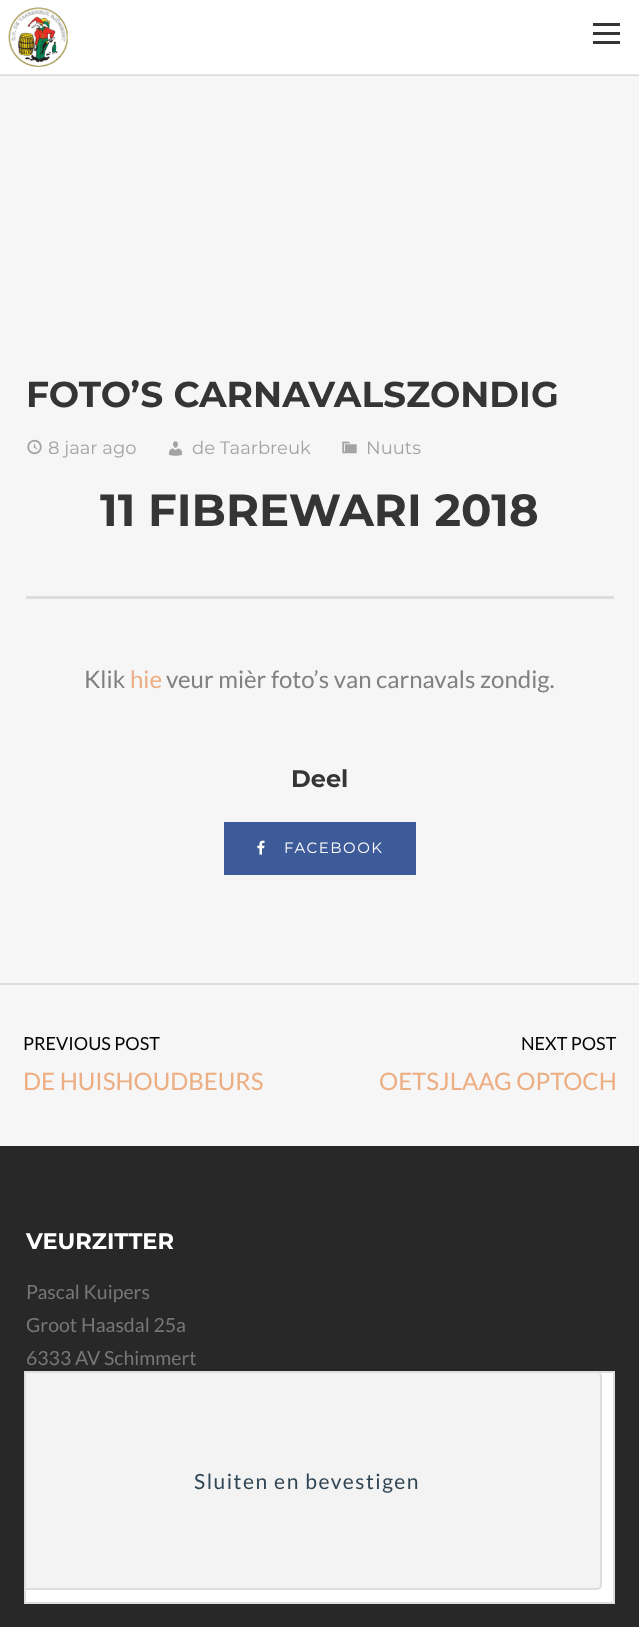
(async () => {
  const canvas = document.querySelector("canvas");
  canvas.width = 639;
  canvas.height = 1627;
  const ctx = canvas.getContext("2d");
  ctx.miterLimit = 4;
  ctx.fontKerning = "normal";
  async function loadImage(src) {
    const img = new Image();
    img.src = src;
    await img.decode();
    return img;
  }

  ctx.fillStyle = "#f6f6f6";
  ctx.fillRect(0, 0, 639, 1627);
  for (const [x, y, w, h, color] of [
    [0, 75, 639, 1, "#dddddd"],
    [0, 0, 639, 74, "#ffffff"],
    [0, 74, 639, 1, "#e6e6e6"],
  ]) {
    ctx.fillStyle = color;
    ctx.fillRect(x, y, w, h);
  }
  ctx.drawImage(await loadImage("img/1.png"), 8, 7, 60, 60);
  for (const [x, y, w, h, color] of [
    [593, 23, 27, 3, "#353535"],
    [593, 32, 27, 3, "#353535"],
    [593, 41, 27, 3, "#353535"],
  ]) {
    ctx.fillStyle = color;
    ctx.fillRect(x, y, w, h);
  }
  ctx.drawImage(await loadImage("img/2.png"), 27, 439, 15, 16);
  ctx.drawImage(await loadImage("img/3.png"), 169, 441, 13, 15);
  ctx.drawImage(await loadImage("img/4.png"), 342, 441, 15, 13);
  ctx.fillStyle = "#dddddd";
  ctx.fillRect(26, 596, 588, 3);
  ctx.fillStyle = "#3d5b98";
  ctx.fillRect(224, 822, 192, 53);
  ctx.drawImage(await loadImage("img/5.png"), 257, 840, 8, 15);
  ctx.fillStyle = "#dddddd";
  ctx.fillRect(0, 983, 639, 2);
  ctx.fillStyle = "#282828";
  ctx.fillRect(0, 1146, 639, 481);
  ctx.fillStyle = "#ffffff";
  ctx.beginPath();
  ctx.rect(25, 1372, 589, 231);
  ctx.fill();
  ctx.strokeStyle = "#dedede";
  ctx.lineWidth = 2;
  ctx.stroke();
  ctx.save();
  ctx.beginPath();
  ctx.rect(26, 1373, 588, 229);
  ctx.clip();
  ctx.fillStyle = "#f3f3f3";
  ctx.beginPath();
  ctx.roundRect(15, 1372, 586, 217, 4);
  ctx.fill();
  ctx.stroke();
  ctx.restore();
  ctx.font = "bold 36px Montserrat";
  ctx.fillStyle = "#353535";
  ctx.fillText("FOTO’S CARNAVALSZONDIG", 26, 407);
  ctx.font = "18px Montserrat";
  ctx.fillStyle = "#a3a3a3";
  for (const [text, x, y] of [
    ["8 jaar ago", 48, 454],
    ["de Taarbreuk", 192, 454],
    ["Nuuts", 366, 454],
  ]) {
    ctx.fillText(text, x, y);
  }
  ctx.font = "bold 45px Montserrat";
  ctx.fillStyle = "#353535";
  ctx.fillText("11 FIBREWARI 2018", 100, 526);
  ctx.font = "24px Lato";
  ctx.fillStyle = "#818181";
  ctx.fillText("Klik", 84, 688);
  ctx.fillStyle = "#ecae82";
  ctx.fillText("hie", 130, 688);
  ctx.fillStyle = "#818181";
  ctx.fillText("veur mièr foto’s van carnavals zondig.", 166, 688);
  ctx.font = "bold 24px Montserrat";
  ctx.fillStyle = "#353535";
  ctx.fillText("Deel", 291, 787);
  ctx.letterSpacing = "1.5px";
  ctx.font = "15px Montserrat";
  ctx.fillStyle = "#ffffff";
  ctx.fillText("FACEBOOK", 284, 853);
  ctx.letterSpacing = "0px";
  ctx.font = "18px Lato";
  ctx.fillStyle = "#030303";
  ctx.fillText("PREVIOUS POST", 23, 1050);
  ctx.font = "24px Lato";
  ctx.fillStyle = "#ecae82";
  ctx.fillText("DE HUISHOUDBEURS", 23, 1090);
  ctx.font = "18px Lato";
  ctx.fillStyle = "#030303";
  ctx.fillText("NEXT POST", 521, 1050);
  ctx.font = "24px Lato";
  ctx.fillStyle = "#ecae82";
  ctx.fillText("OETSJLAAG OPTOCH", 379, 1090);
  ctx.font = "bold 22.5px Montserrat";
  ctx.fillStyle = "#ffffff";
  ctx.fillText("VEURZITTER", 26, 1249);
  ctx.font = "19.5px Lato";
  ctx.fillStyle = "#777777";
  for (const [text, x, y] of [
    ["Pascal Kuipers", 26, 1299],
    ["Groot Haasdal 25a", 26, 1332],
    ["6333 AV Schimmert", 26, 1365],
  ]) {
    ctx.fillText(text, x, y);
  }
  ctx.letterSpacing = "1.5px";
  ctx.font = "21px Lato";
  ctx.fillStyle = "#304655";
  ctx.fillText("Sluiten en bevestigen", 194, 1489);
})();
